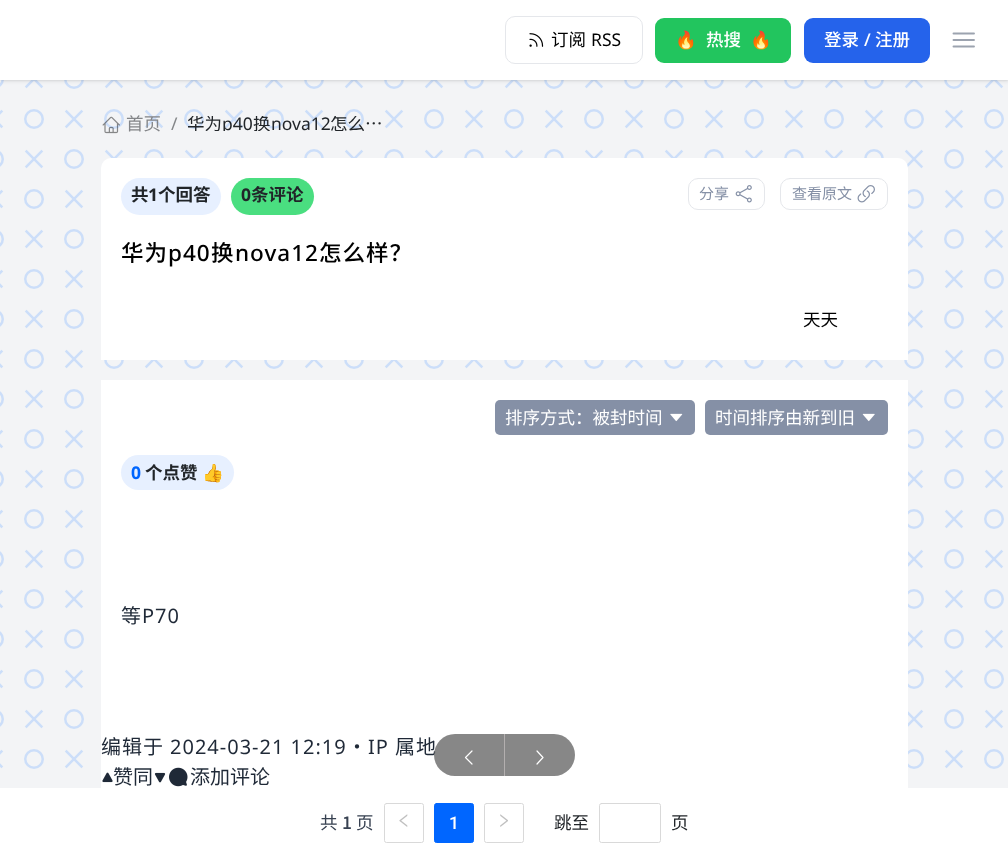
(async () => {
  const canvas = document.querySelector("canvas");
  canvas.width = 1008;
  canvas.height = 857;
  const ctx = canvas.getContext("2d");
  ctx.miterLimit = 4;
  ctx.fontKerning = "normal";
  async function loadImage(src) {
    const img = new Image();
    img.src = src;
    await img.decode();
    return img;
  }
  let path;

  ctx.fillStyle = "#f3f4f6";
  ctx.fillRect(0, 0, 1008, 857);
  ctx.drawImage(await loadImage("img/1.png"), 0, 80, 1004, 689);
  ctx.fillStyle = "rgba(0, 0, 0, 0.1)";
  ctx.filter = "blur(1px)";
  ctx.beginPath();
  ctx.rect(1, 3, 1007, 77);
  ctx.fill();
  ctx.filter = "none";
  ctx.filter = "blur(2px)";
  ctx.beginPath();
  ctx.rect(0, 1, 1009, 80);
  ctx.fill();
  ctx.filter = "none";
  ctx.fillStyle = "#ffffff";
  ctx.fillRect(0, 0, 1008, 80);
  ctx.beginPath();
  ctx.roundRect(505.5, 16.5, 137, 47, 9.5);
  ctx.strokeStyle = "#e5e7eb";
  ctx.stroke();
  ctx.drawImage(await loadImage("img/2.png"), 529, 33, 15, 14);
  ctx.fillStyle = "#22c55e";
  ctx.beginPath();
  ctx.roundRect(655, 18, 136, 45, 9);
  ctx.fill();
  ctx.fillStyle = "#2563eb";
  ctx.beginPath();
  ctx.roundRect(804, 18, 126, 45, 9);
  ctx.fill();
  path = new Path2D("M953.5 33.5H974M953.5 40H974M953.5 46.5H974");
  ctx.strokeStyle = "#9ca3af";
  ctx.lineWidth = 1.9;
  ctx.lineCap = "round";
  ctx.lineJoin = "round";
  ctx.stroke(path);
  ctx.drawImage(await loadImage("img/3.png"), 102, 116, 18, 18);
  ctx.fillStyle = "#ffffff";
  ctx.beginPath();
  ctx.roundRect(101, 158, 807, 202, [10, 10, 0, 0]);
  ctx.fill();
  ctx.fillStyle = "#e7f0ff";
  ctx.beginPath();
  ctx.roundRect(121, 178, 100, 37, 18.5);
  ctx.fill();
  ctx.fillStyle = "#4ade80";
  ctx.beginPath();
  ctx.roundRect(231, 178, 83, 37, 18.5);
  ctx.fill();
  ctx.beginPath();
  ctx.roundRect(688.5, 178.5, 76, 31, 9.5);
  ctx.strokeStyle = "#e5e7eb";
  ctx.lineWidth = 1;
  ctx.lineJoin = "miter";
  ctx.stroke();
  ctx.drawImage(await loadImage("img/4.png"), 735, 185, 17, 18);
  ctx.beginPath();
  ctx.roundRect(780.5, 178.5, 107, 31, 9.5);
  ctx.stroke();
  ctx.drawImage(await loadImage("img/5.png"), 857, 185, 18, 18);
  ctx.fillStyle = "#ffffff";
  ctx.fillRect(101, 380, 807, 408);
  ctx.fillStyle = "#8590a6";
  ctx.beginPath();
  ctx.roundRect(495, 400, 200, 35, 5);
  ctx.fill();
  ctx.drawImage(await loadImage("img/6.png"), 670, 413, 13, 9);
  ctx.beginPath();
  ctx.roundRect(705, 400, 183, 35, 5);
  ctx.fill();
  ctx.drawImage(await loadImage("img/7.png"), 862, 413, 13, 9);
  ctx.fillStyle = "#e7f0ff";
  ctx.beginPath();
  ctx.roundRect(121, 455, 113, 35, 17.5);
  ctx.fill();
  ctx.drawImage(await loadImage("img/8.png"), 102, 772, 11, 11);
  ctx.drawImage(await loadImage("img/9.png"), 154, 772, 12, 11);
  ctx.drawImage(await loadImage("img/10.png"), 169, 767, 19, 20);
  ctx.fillStyle = "#b3afaf";
  ctx.fillRect(504, 734, 1, 42);
  ctx.fillStyle = "#878787";
  ctx.beginPath();
  ctx.roundRect(505, 734, 70, 42, [0, 21, 21, 0]);
  ctx.fill();
  path = new Path2D("M537 751L543 757.5L537 764");
  ctx.strokeStyle = "#ffffff";
  ctx.lineWidth = 1.2;
  ctx.lineJoin = "round";
  ctx.stroke(path);
  ctx.fillStyle = "#ffffff";
  ctx.fillRect(0, 788, 1008, 69);
  ctx.beginPath();
  ctx.roundRect(384.5, 803.5, 39, 39, 2);
  ctx.strokeStyle = "#d9d9d9";
  ctx.lineWidth = 1;
  ctx.lineJoin = "miter";
  ctx.stroke();
  ctx.drawImage(await loadImage("img/11.png"), 399, 814, 9, 13);
  ctx.fillStyle = "#0066ff";
  ctx.beginPath();
  ctx.roundRect(434.5, 803.5, 39, 39, 2);
  ctx.fill();
  ctx.strokeStyle = "#0066ff";
  ctx.stroke();
  ctx.beginPath();
  ctx.roundRect(484.5, 803.5, 39, 39, 2);
  ctx.strokeStyle = "#d9d9d9";
  ctx.stroke();
  ctx.drawImage(await loadImage("img/12.png"), 500, 814, 8, 13);
  ctx.beginPath();
  ctx.roundRect(599.5, 803.5, 61, 39, 2);
  ctx.stroke();
  ctx.font = "17.5px Noto Sans CJK SC";
  ctx.fillStyle = "#000000";
  ctx.fillText("订阅", 551, 46);
  ctx.font = "17.5px Noto Sans";
  ctx.fillText("RSS", 591, 46);
  ctx.font = "17.5px Noto Color Emoji";
  ctx.fillStyle = "#ffffff";
  ctx.fillText("🔥", 675, 46);
  ctx.font = "500 17.5px Noto Sans CJK SC";
  ctx.fillText("热搜", 706, 46);
  ctx.font = "17.5px Noto Color Emoji";
  ctx.fillText("🔥", 750, 46);
  ctx.font = "500 17.5px Noto Sans CJK SC";
  ctx.fillText("登录", 824, 46);
  ctx.font = "500 17.5px Noto Sans";
  ctx.fillText("/", 864, 46);
  ctx.font = "500 17.5px Noto Sans CJK SC";
  ctx.fillText("注册", 875, 46);
  ctx.font = "17.5px Noto Sans CJK SC";
  ctx.fillStyle = "#838588";
  ctx.fillText("首页", 126, 130);
  ctx.font = "17.5px Noto Sans";
  ctx.fillText("/", 171, 130);
  ctx.save();
  ctx.beginPath();
  ctx.rect(188, 116, 200, 15);
  ctx.clip();
  ctx.font = "17.5px Noto Sans CJK SC";
  ctx.fillStyle = "#212529";
  ctx.fillText("华为", 187, 130);
  ctx.font = "17.5px Noto Sans";
  ctx.fillText("p40", 222, 130);
  ctx.font = "17.5px Noto Sans CJK SC";
  ctx.fillText("换", 253, 130);
  ctx.restore();
  ctx.fillStyle = "#212529";
  ctx.fillText("nova12", 271, 130);
  ctx.save();
  ctx.beginPath();
  ctx.rect(188, 116, 200, 15);
  ctx.clip();
  ctx.font = "17.5px Noto Sans CJK SC";
  ctx.fillText("怎么…", 330, 130);
  ctx.restore();
  ctx.font = "bold 17.5px Noto Sans CJK SC";
  ctx.fillText("共", 131, 201);
  ctx.font = "bold 17.5px Noto Sans";
  ctx.fillText("1", 148, 201);
  ctx.font = "bold 17.5px Noto Sans CJK SC";
  ctx.fillText("个回答", 158, 201);
  ctx.font = "bold 17.5px Noto Sans";
  ctx.fillText("0", 241, 201);
  ctx.font = "bold 17.5px Noto Sans CJK SC";
  ctx.fillText("条评论", 251, 201);
  ctx.font = "15px Noto Sans CJK SC";
  ctx.fillStyle = "#8590a6";
  ctx.fillText("分享", 699, 199);
  ctx.fillText("查看原文", 792, 199);
  ctx.letterSpacing = "1px";
  ctx.font = "500 22.5px Noto Sans CJK SC";
  ctx.fillStyle = "#000000";
  ctx.fillText("华为", 121, 261);
  ctx.font = "500 22.5px Noto Sans";
  ctx.fillText("p40", 168, 261);
  ctx.font = "500 22.5px Noto Sans CJK SC";
  ctx.fillText("换", 211, 261);
  ctx.font = "500 22.5px Noto Sans";
  ctx.fillText("nova12", 235, 261);
  ctx.font = "500 22.5px Noto Sans CJK SC";
  ctx.fillText("怎么样？", 319, 261);
  ctx.letterSpacing = "0px";
  ctx.font = "17.5px Noto Sans CJK SC";
  ctx.fillText("天天", 803, 326);
  ctx.fillStyle = "#ffffff";
  ctx.fillText("排序方式：被封时间", 505, 424);
  ctx.fillText("时间排序由新到旧", 715, 424);
  ctx.font = "bold 17.5px Noto Sans";
  ctx.fillStyle = "#0066ff";
  ctx.fillText("0", 131, 479);
  ctx.font = "bold 17.5px Noto Sans CJK SC";
  ctx.fillStyle = "#212529";
  ctx.fillText("个点赞", 145, 479);
  ctx.font = "bold 17.5px Noto Color Emoji";
  ctx.fillText("👍", 202, 479);
  ctx.letterSpacing = "1px";
  ctx.font = "20px Noto Sans CJK SC";
  ctx.fillStyle = "#1f2937";
  ctx.fillText("等", 121, 623);
  ctx.font = "20px Noto Sans";
  ctx.fillText("P70", 142, 623);
  ctx.font = "20px Noto Sans CJK SC";
  ctx.fillText("编辑于", 101, 754);
  ctx.font = "20px Noto Sans";
  ctx.fillText("2024-03-21 12:19", 170, 754);
  ctx.font = "20px Noto Sans CJK SC";
  ctx.fillText("・", 347, 754);
  ctx.font = "20px Noto Sans";
  ctx.fillText("IP", 368, 754);
  ctx.font = "20px Noto Sans CJK SC";
  ctx.fillText("属地", 395, 754);
  ctx.letterSpacing = "0px";
  ctx.fillText("赞同", 113, 784);
  ctx.fillText("添加评论", 190, 784);
  ctx.fillStyle = "rgba(105, 105, 105, 0.8)";
  ctx.beginPath();
  ctx.roundRect(434, 734, 70, 42, [21, 0, 0, 21]);
  ctx.fill();
  path = new Path2D("M472 764L465.5 757.5L472 751");
  ctx.strokeStyle = "#ffffff";
  ctx.lineWidth = 1.2;
  ctx.lineJoin = "round";
  ctx.stroke(path);
  ctx.font = "17.5px Noto Sans CJK SC";
  ctx.fillStyle = "#374151";
  ctx.fillText("共", 320, 829);
  ctx.font = "500 17.5px Noto Sans SC";
  ctx.fillText("1", 342, 829);
  ctx.font = "17.5px Noto Sans CJK SC";
  ctx.fillText("页", 356, 829);
  ctx.font = "500 17.5px Roboto";
  ctx.fillStyle = "#ffffff";
  ctx.fillText("1", 449, 829);
  ctx.font = "17.5px Noto Sans CJK SC";
  ctx.fillStyle = "#212529";
  ctx.fillText("跳至", 554, 829);
  ctx.fillText("页", 671, 829);
})();
